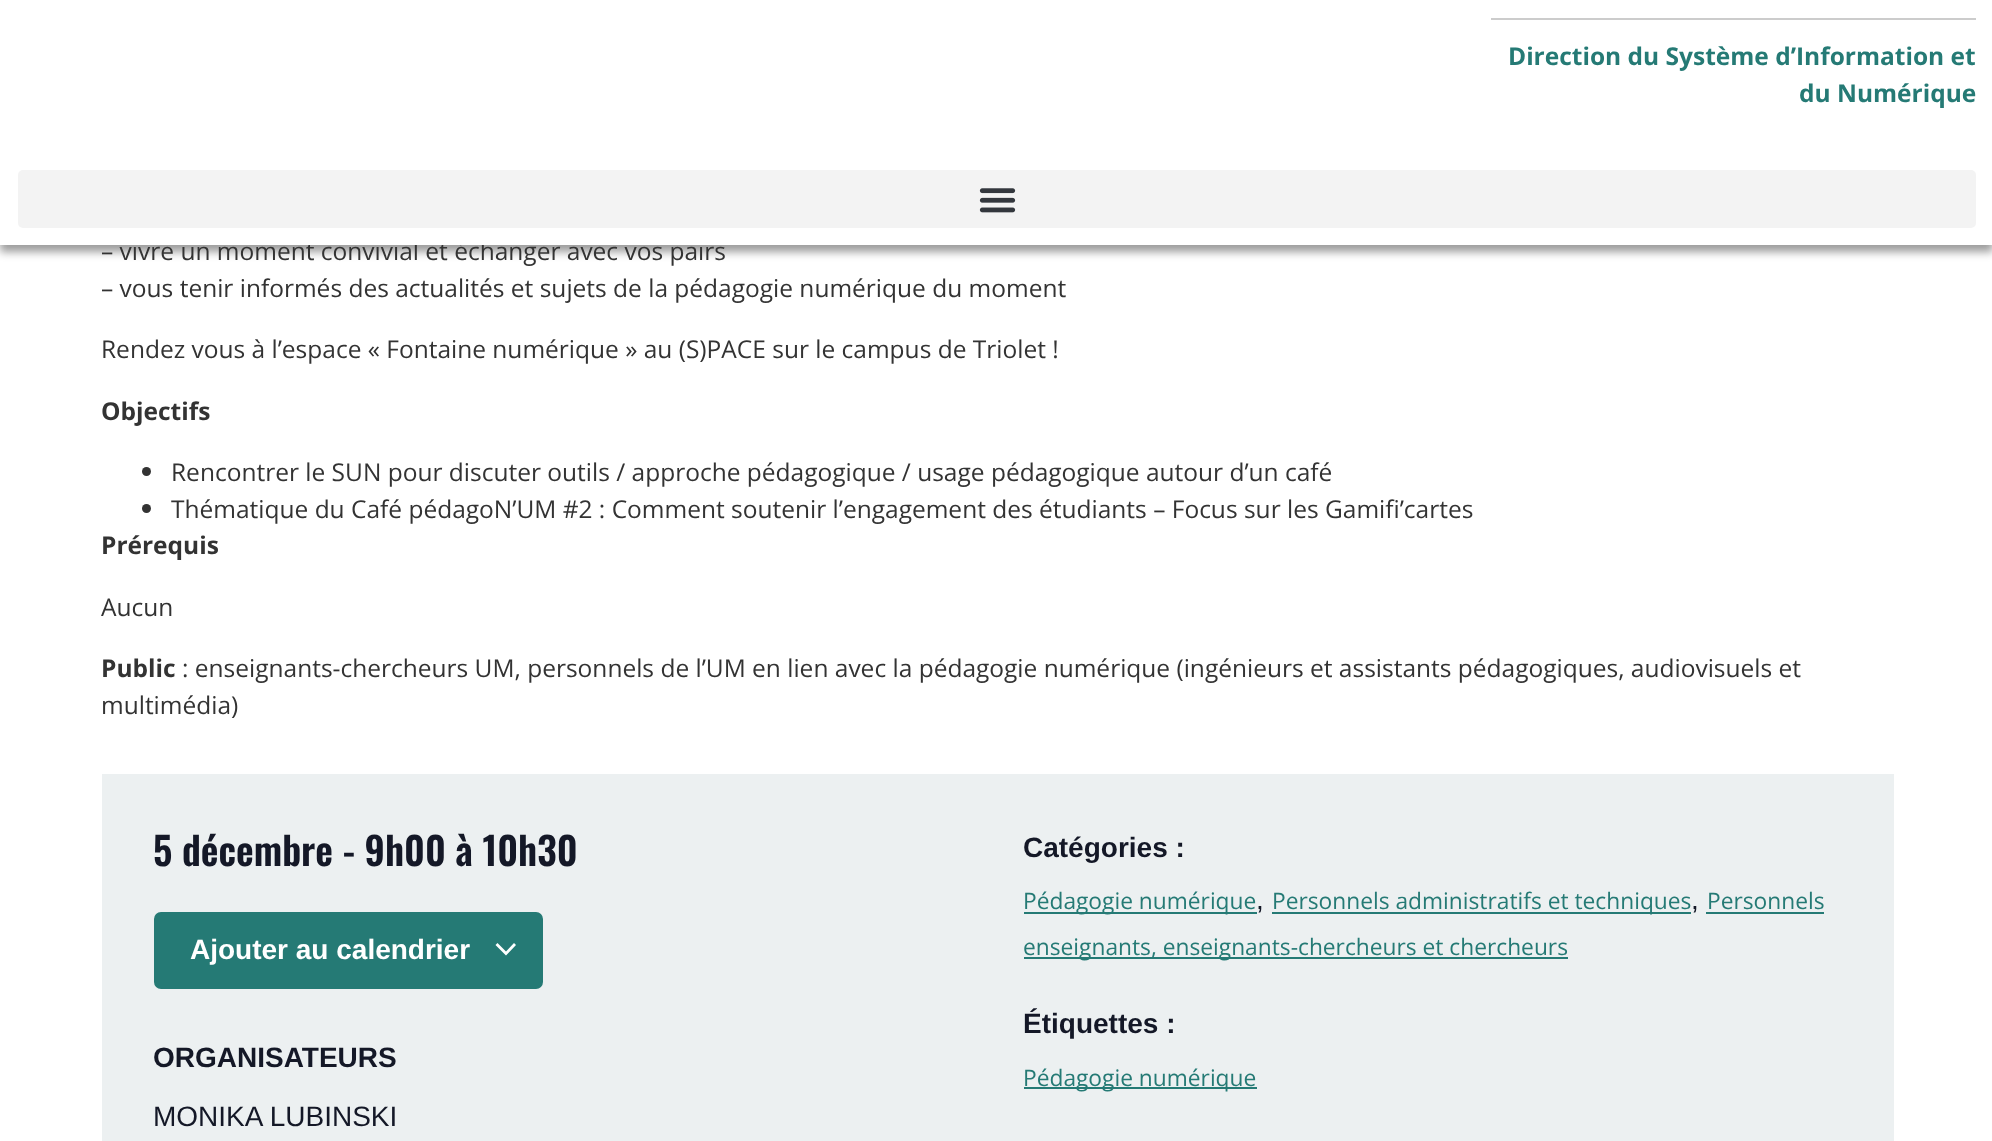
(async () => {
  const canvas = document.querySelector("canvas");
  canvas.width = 1992;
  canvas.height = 1141;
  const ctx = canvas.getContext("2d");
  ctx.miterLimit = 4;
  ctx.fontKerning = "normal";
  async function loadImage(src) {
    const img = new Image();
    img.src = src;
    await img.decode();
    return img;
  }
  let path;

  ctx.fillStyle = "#ffffff";
  ctx.fillRect(0, 0, 1992, 1141);
  ctx.fillStyle = "rgba(0, 0, 0, 0.39)";
  ctx.filter = "blur(4.5px)";
  ctx.beginPath();
  ctx.rect(0, 7, 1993, 245);
  ctx.fill();
  ctx.filter = "none";
  ctx.fillStyle = "#333333";
  ctx.beginPath();
  ctx.arc(146.5, 471.5, 4.5, 0, Math.PI * 2);
  ctx.fill();
  ctx.beginPath();
  ctx.arc(146.5, 508.5, 4.5, 0, Math.PI * 2);
  ctx.fill();
  ctx.fillStyle = "#ecf0f1";
  ctx.fillRect(102, 774, 1792, 367);
  ctx.fillStyle = "#257a75";
  ctx.beginPath();
  ctx.roundRect(155, 913, 387, 75, 6);
  ctx.fill();
  ctx.strokeStyle = "#257a75";
  ctx.lineWidth = 2;
  ctx.stroke();
  ctx.fillStyle = "#ffffff";
  path = new Path2D("M497.5 943L506 951.5L514 943L516 945L506 955.5L495.5 945Z");
  ctx.fill(path);
  for (const [x, y, w, h, color] of [
    [1024, 912, 233, 2, "#257a75"],
    [1272, 912, 419, 2, "#257a75"],
    [1706, 912, 118, 2, "#257a75"],
    [1024, 957, 544, 2, "#257a75"],
    [1024, 1087, 233, 2, "#257a75"],
  ]) {
    ctx.fillStyle = color;
    ctx.fillRect(x, y, w, h);
  }
  ctx.font = "24.5px Open Sans";
  ctx.fillStyle = "#333333";
  ctx.fillText("– vivre un moment convivial et échanger avec vos pairs", 101, 260);
  ctx.fillStyle = "#ffffff";
  ctx.fillRect(0, 0, 1992, 245);
  ctx.fillStyle = "#f3f3f3";
  ctx.beginPath();
  ctx.roundRect(18, 170, 1958, 58, 5);
  ctx.fill();
  ctx.drawImage(await loadImage("img/1.png"), 979, 188, 37, 25);
  ctx.font = "bold 24.5px Open Sans";
  ctx.fillStyle = "#257a75";
  ctx.fillText("du Numérique", 1799, 102);
  ctx.fillText("Direction du Système d’Information et", 1508, 65);
  ctx.fillStyle = "#cccccc";
  ctx.fillRect(1491, 18, 485, 2);
  ctx.font = "24.5px Open Sans";
  ctx.fillStyle = "#333333";
  ctx.fillText("– vous tenir informés des actualités et sujets de la pédagogie numérique du moment", 101, 297);
  ctx.fillText("Rendez vous à l’espace « Fontaine numérique » au (S)PACE sur le campus de Triolet !", 101, 358);
  ctx.font = "bold 24.5px Open Sans";
  ctx.fillText("Objectifs", 101, 420);
  ctx.font = "24.5px Open Sans";
  ctx.fillText("Rencontrer le SUN pour discuter outils / approche pédagogique / usage pédagogique autour d’un café", 171, 481);
  ctx.fillText("Thématique du Café pédagoN’UM #2 : Comment soutenir l’engagement des étudiants – Focus sur les Gamifi’cartes", 171, 518);
  ctx.font = "bold 24.5px Open Sans";
  ctx.fillText("Prérequis", 101, 554);
  ctx.font = "24.5px Open Sans";
  ctx.fillText("Aucun", 101, 616);
  ctx.font = "bold 24.5px Open Sans";
  ctx.fillText("Public", 101, 677);
  ctx.font = "24.5px Open Sans";
  ctx.fillText(": enseignants-chercheurs UM, personnels de l’UM en lien avec la pédagogie numérique (ingénieurs et assistants pédagogiques, audiovisuels et", 182, 677);
  ctx.fillText("multimédia)", 101, 714);
  ctx.font = "600 38.5px Oswald";
  ctx.fillStyle = "#141827";
  ctx.fillText("5 décembre - 9h00 à 10h30", 153, 866);
  ctx.font = "bold 28px Liberation Sans";
  ctx.fillStyle = "#ffffff";
  ctx.fillText("Ajouter au calendrier", 190, 959);
  ctx.fillStyle = "#141827";
  ctx.fillText("ORGANISATEURS", 153, 1067);
  ctx.font = "28px Liberation Sans";
  ctx.fillText("MONIKA LUBINSKI", 153, 1126);
  ctx.font = "bold 28px Liberation Sans";
  ctx.fillText("Catégories :", 1023, 857);
  ctx.font = "22.75px Open Sans";
  ctx.fillStyle = "#257a75";
  ctx.fillText("Pédagogie numérique", 1023, 909);
  ctx.font = "28px Liberation Sans";
  ctx.fillStyle = "#141827";
  ctx.fillText(",", 1256, 909);
  ctx.font = "22.75px Open Sans";
  ctx.fillStyle = "#257a75";
  ctx.fillText("Personnels administratifs et techniques", 1272, 909);
  ctx.font = "28px Liberation Sans";
  ctx.fillStyle = "#141827";
  ctx.fillText(",", 1691, 909);
  ctx.font = "22.75px Open Sans";
  ctx.fillStyle = "#257a75";
  ctx.fillText("Personnels", 1707, 909);
  ctx.fillText("enseignants, enseignants-chercheurs et chercheurs", 1023, 955);
  ctx.font = "bold 28px Liberation Sans";
  ctx.fillStyle = "#141827";
  ctx.fillText("Étiquettes :", 1023, 1033);
  ctx.font = "22.75px Open Sans";
  ctx.fillStyle = "#257a75";
  ctx.fillText("Pédagogie numérique", 1023, 1086);
})();
